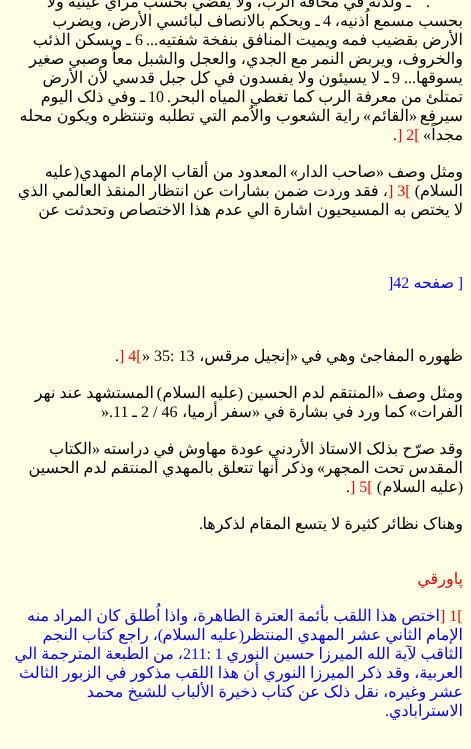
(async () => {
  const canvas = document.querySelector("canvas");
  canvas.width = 471;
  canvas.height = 749;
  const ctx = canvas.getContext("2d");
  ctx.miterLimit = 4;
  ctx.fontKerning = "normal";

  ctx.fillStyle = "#fffde4";
  ctx.fillRect(0, 0, 471, 749);
  ctx.direction = "rtl";
  ctx.font = "16px Liberation Serif";
  ctx.fillStyle = "#000000";
  ctx.fillText(".", 430, 7);
  ctx.wordSpacing = "-1px";
  ctx.font = "16px DejaVu Sans";
  for (const [text, x, y] of [
    ["ـ ولذته في مخافة الرب، ولا يقضي بحسب مرأي عينيه ولا", 411, 7],
    ["بحسب مسمع اُذنيه،", 463, 26],
    ["ـ ويحکم بالانصاف لبائسي الأرض، ويضرب", 320, 26],
  ]) {
    ctx.fillText(text, x, y);
  }
  ctx.wordSpacing = "0px";
  ctx.direction = "ltr";
  ctx.font = "16px Liberation Serif";
  ctx.fillText("4", 323, 26);
  ctx.wordSpacing = "-1px";
  ctx.direction = "rtl";
  ctx.font = "16px DejaVu Sans";
  ctx.fillText("الأرض بقضيب فمه ويميت المنافق بنفخة شفتيه", 463, 45);
  ctx.wordSpacing = "0px";
  ctx.font = "16px Liberation Serif";
  ctx.fillText("...", 158, 45);
  ctx.direction = "ltr";
  ctx.fillText("6", 135, 45);
  ctx.wordSpacing = "-1px";
  ctx.direction = "rtl";
  ctx.font = "16px DejaVu Sans";
  ctx.fillText("ـ ويسکن الذئب", 131, 45);
  ctx.fillText("والخروف، ويربض النمر مع الجدي، والعجل والشبل معاً وصبي صغير", 463, 64);
  ctx.wordSpacing = "0px";
  ctx.fillText("يسوقها", 463, 83);
  ctx.wordSpacing = "-1px";
  ctx.fillText("ـ لا يسيئون ولا يفسدون في کل جبل قدسي لأن الأرض", 389, 83);
  ctx.wordSpacing = "0px";
  ctx.font = "16px Liberation Serif";
  ctx.fillText("...", 416, 83);
  ctx.direction = "ltr";
  ctx.fillText("9", 392, 83);
  ctx.direction = "rtl";
  ctx.fillText(".", 171, 102);
  ctx.wordSpacing = "-1px";
  ctx.font = "16px DejaVu Sans";
  ctx.fillText("تمتلئ من معرفة الرب کما تغطي المياه البحر", 463, 102);
  ctx.wordSpacing = "0px";
  ctx.direction = "ltr";
  ctx.font = "16px Liberation Serif";
  ctx.fillText("10", 148, 102);
  ctx.wordSpacing = "-1px";
  ctx.direction = "rtl";
  ctx.font = "16px DejaVu Sans";
  ctx.fillText("ـ وفي ذلک اليوم", 145, 102);
  ctx.wordSpacing = "0px";
  ctx.fillText("سيرفع", 463, 121);
  ctx.font = "16px Liberation Serif";
  ctx.fillText("«", 417, 121);
  ctx.font = "16px DejaVu Sans";
  ctx.fillText("القائم", 409, 121);
  ctx.wordSpacing = "-0.75px";
  ctx.fillText("راية الشعوب والاُمم التي تطلبه وتنتظره ويکون محله", 360, 121);
  ctx.wordSpacing = "0px";
  ctx.font = "16px Liberation Serif";
  ctx.fillText("»", 371, 121);
  ctx.font = "16px DejaVu Sans";
  ctx.fillText("مجداً", 463, 140);
  ctx.font = "16px Liberation Serif";
  ctx.fillText("»", 431, 140);
  ctx.direction = "ltr";
  ctx.fillStyle = "#ff0000";
  ctx.fillText("] 2[", 397, 140);
  ctx.fillStyle = "#000000";
  ctx.fillText(".", 393, 140);
  ctx.wordSpacing = "-1px";
  ctx.direction = "rtl";
  ctx.font = "16px DejaVu Sans";
  ctx.fillText("ومثل وصف", 463, 177);
  ctx.wordSpacing = "0px";
  ctx.font = "16px Liberation Serif";
  ctx.fillText("«", 384, 177);
  ctx.fillText("»", 298, 177);
  ctx.wordSpacing = "-1px";
  ctx.font = "16px DejaVu Sans";
  ctx.fillText("صاحب الدار", 376, 177);
  ctx.fillText("المعدود من ألقاب الإمام المهدي", 287, 177);
  ctx.wordSpacing = "0px";
  ctx.font = "16px Liberation Serif";
  ctx.fillText("(", 79, 177);
  ctx.font = "16px DejaVu Sans";
  ctx.fillText("عليه", 73, 177);
  ctx.fillText("السلام", 463, 196);
  ctx.font = "16px Liberation Serif";
  ctx.fillText(")", 420, 196);
  ctx.direction = "ltr";
  ctx.fillStyle = "#ff0000";
  ctx.fillText("] 3[", 388, 196);
  ctx.wordSpacing = "-1px";
  ctx.direction = "rtl";
  ctx.font = "16px DejaVu Sans";
  ctx.fillStyle = "#000000";
  ctx.fillText("، فقد وردت ضمن بشارات عن انتظار المنقذ العالمي الذي", 388, 196);
  ctx.fillText("لا يختص به المسيحيون اشارة الي عدم هذا الاختصاص وتحدثت عن", 463, 215);
  ctx.wordSpacing = "0px";
  ctx.font = "16px Liberation Serif";
  ctx.fillStyle = "#0000ff";
  ctx.fillText("[", 463, 288);
  ctx.font = "16px DejaVu Sans";
  ctx.fillText("صفحه", 454, 288);
  ctx.direction = "ltr";
  ctx.font = "16px Liberation Serif";
  ctx.fillText("]42", 388, 288);
  ctx.wordSpacing = "-1px";
  ctx.direction = "rtl";
  ctx.font = "16px DejaVu Sans";
  ctx.fillStyle = "#000000";
  ctx.fillText("ظهوره المفاجئ وهي في", 463, 361);
  ctx.wordSpacing = "0px";
  ctx.font = "16px Liberation Serif";
  ctx.fillText("«", 298, 361);
  ctx.wordSpacing = "-1px";
  ctx.font = "16px DejaVu Sans";
  ctx.fillText("إنجيل مرقس،", 290, 361);
  ctx.wordSpacing = "0px";
  ctx.direction = "ltr";
  ctx.font = "16px Liberation Serif";
  ctx.fillText("» 35: 13", 142, 361);
  ctx.fillStyle = "#ff0000";
  ctx.fillText("] 4[", 119, 361);
  ctx.fillStyle = "#000000";
  ctx.fillText(".", 115, 361);
  ctx.wordSpacing = "-1px";
  ctx.direction = "rtl";
  ctx.font = "16px DejaVu Sans";
  ctx.fillText("ومثل وصف", 463, 398);
  ctx.wordSpacing = "0px";
  ctx.font = "16px Liberation Serif";
  ctx.fillText("«", 384, 398);
  ctx.wordSpacing = "-1px";
  ctx.font = "16px DejaVu Sans";
  ctx.fillText("المنتقم لدم الحسين", 376, 398);
  ctx.wordSpacing = "0px";
  ctx.font = "16px Liberation Serif";
  ctx.fillText("(", 243, 398);
  ctx.wordSpacing = "-1px";
  ctx.font = "16px DejaVu Sans";
  ctx.fillText("عليه السلام", 238, 398);
  ctx.wordSpacing = "0px";
  ctx.font = "16px Liberation Serif";
  ctx.fillText(")", 162, 398);
  ctx.wordSpacing = "-1px";
  ctx.font = "16px DejaVu Sans";
  ctx.fillText("المستشهد عند نهر", 154, 398);
  ctx.wordSpacing = "0px";
  ctx.fillText("الفرات", 463, 417);
  ctx.wordSpacing = "-1px";
  ctx.fillText("کما ورد في بشارة في", 406, 417);
  ctx.wordSpacing = "0px";
  ctx.font = "16px Liberation Serif";
  ctx.fillText("»", 417, 417);
  ctx.fillText("«", 260, 417);
  ctx.wordSpacing = "-1px";
  ctx.font = "16px DejaVu Sans";
  ctx.fillText("سفر أرميا،", 252, 417);
  ctx.wordSpacing = "0px";
  ctx.direction = "ltr";
  ctx.font = "16px Liberation Serif";
  ctx.fillText("2 / 46", 141, 417);
  ctx.direction = "rtl";
  ctx.font = "16px DejaVu Sans";
  ctx.fillText("ـ", 137, 417);
  ctx.direction = "ltr";
  ctx.font = "16px Liberation Serif";
  ctx.fillText("».11", 101, 417);
  ctx.wordSpacing = "-1px";
  ctx.direction = "rtl";
  ctx.font = "16px DejaVu Sans";
  ctx.fillText("وقد صرّح بذلک الاستاذ الأردني عودة مهاوش في دراسته", 463, 454);
  ctx.wordSpacing = "0px";
  ctx.font = "16px Liberation Serif";
  ctx.fillText("«", 100, 454);
  ctx.font = "16px DejaVu Sans";
  ctx.fillText("الکتاب", 92, 454);
  ctx.wordSpacing = "-1px";
  ctx.fillText("وذکر أنها تتعلق بالمهدي المنتقم لدم الحسين", 314, 473);
  ctx.wordSpacing = "0px";
  ctx.font = "16px Liberation Serif";
  ctx.fillText("»", 325, 473);
  ctx.wordSpacing = "-1px";
  ctx.font = "16px DejaVu Sans";
  ctx.fillText("المقدس تحت المجهر", 463, 473);
  ctx.wordSpacing = "0px";
  ctx.font = "16px Liberation Serif";
  ctx.fillText("(", 463, 492);
  ctx.wordSpacing = "-1px";
  ctx.font = "16px DejaVu Sans";
  ctx.fillText("عليه السلام", 458, 492);
  ctx.wordSpacing = "0px";
  ctx.font = "16px Liberation Serif";
  ctx.fillText(")", 382, 492);
  ctx.direction = "ltr";
  ctx.fillStyle = "#ff0000";
  ctx.fillText("] 5[", 350, 492);
  ctx.fillStyle = "#000000";
  ctx.fillText(".", 346, 492);
  ctx.wordSpacing = "-1px";
  ctx.direction = "rtl";
  ctx.font = "16px DejaVu Sans";
  ctx.fillText("وهناک نظائر کثيرة لا يتسع المقام لذکرها", 463, 529);
  ctx.wordSpacing = "0px";
  ctx.font = "16px Liberation Serif";
  ctx.fillText(".", 203, 529);
  ctx.font = "16px DejaVu Sans";
  ctx.fillStyle = "#ff0000";
  ctx.fillText("پاورقي", 463, 584);
  ctx.direction = "ltr";
  ctx.font = "16px Liberation Serif";
  ctx.fillText("] 1[", 440, 621);
  ctx.wordSpacing = "-1px";
  ctx.direction = "rtl";
  ctx.font = "16px DejaVu Sans";
  ctx.fillStyle = "#0000ff";
  ctx.fillText("اختص هذا اللقب بأئمة العترة الطاهرة، واذا اُطلق کان المراد منه", 440, 621);
  ctx.wordSpacing = "0px";
  ctx.font = "16px Liberation Serif";
  ctx.fillText("(", 244, 640);
  ctx.wordSpacing = "-1px";
  ctx.font = "16px DejaVu Sans";
  for (const [text, x, y] of [
    ["الإمام الثاني عشر المهدي المنتظر", 463, 640],
    ["عليه السلام", 238, 640],
    ["، راجع کتاب النجم", 158, 640],
  ]) {
    ctx.fillText(text, x, y);
  }
  ctx.wordSpacing = "0px";
  ctx.font = "16px Liberation Serif";
  ctx.fillText(")", 163, 640);
  ctx.wordSpacing = "-1px";
  ctx.font = "16px DejaVu Sans";
  ctx.fillText("الثاقب لآية الله الميرزا حسين النوري", 463, 659);
  ctx.fillText("، من الطبعة المترجمة الي", 183, 659);
  ctx.wordSpacing = "0px";
  ctx.direction = "ltr";
  ctx.font = "16px Liberation Serif";
  ctx.fillText("211: 1", 183, 659);
  ctx.wordSpacing = "-1px";
  ctx.direction = "rtl";
  ctx.font = "16px DejaVu Sans";
  ctx.fillText("العربية، وقد ذکر الميرزا النوري أن هذا اللقب مذکور في الزبور الثالث", 463, 678);
  ctx.fillText("عشر وغيره، نقل ذلک عن کتاب ذخيرة الألباب للشيخ محمد", 463, 697);
  ctx.wordSpacing = "0px";
  ctx.fillText("الاسترابادي", 463, 716);
  ctx.font = "16px Liberation Serif";
  ctx.fillText(".", 389, 716);
})();
